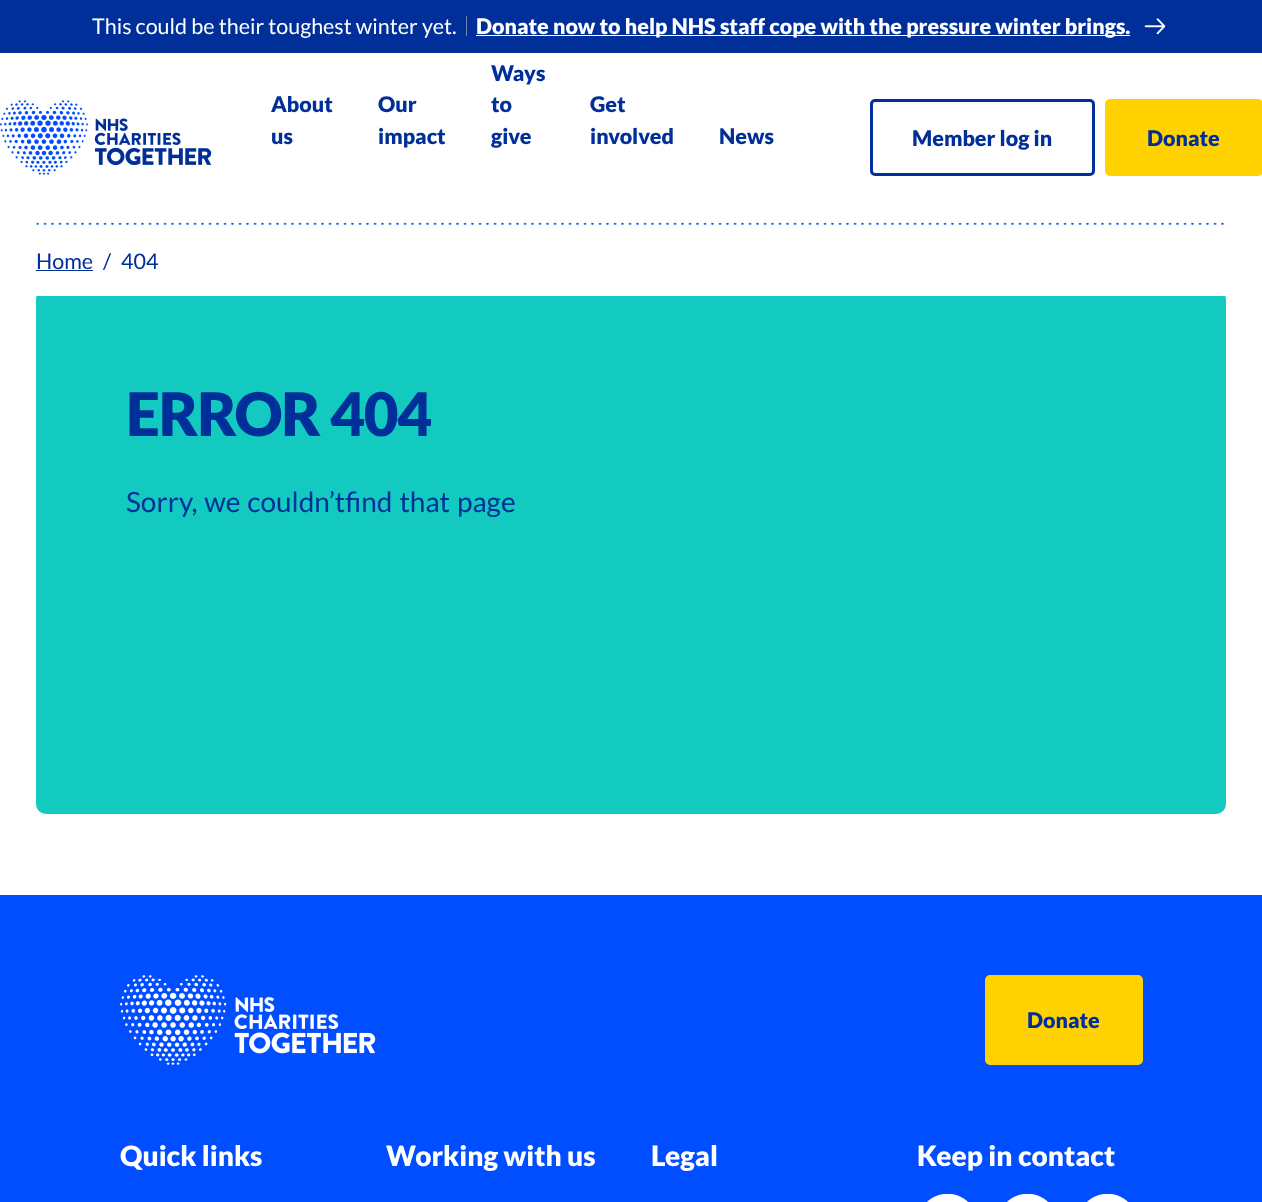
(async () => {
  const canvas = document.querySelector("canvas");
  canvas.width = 1262;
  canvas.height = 1202;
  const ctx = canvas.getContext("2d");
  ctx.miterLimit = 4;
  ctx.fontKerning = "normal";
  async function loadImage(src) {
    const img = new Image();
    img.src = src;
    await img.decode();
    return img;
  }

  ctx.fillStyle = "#ffffff";
  ctx.fillRect(0, 0, 1262, 1202);
  for (const [x, y, w, h, color] of [
    [0, 0, 1262, 53, "#002f99"],
    [466, 16, 1, 20, "#6d84b9"],
    [476, 35, 654, 1, "#ffffff"],
  ]) {
    ctx.fillStyle = color;
    ctx.fillRect(x, y, w, h);
  }
  ctx.drawImage(await loadImage("img/1.png"), 1144, 18, 22, 17);
  ctx.drawImage(await loadImage("img/2.png"), 0, 100, 212, 75);
  ctx.beginPath();
  ctx.roundRect(871.5, 100.5, 222, 74, 3.5);
  ctx.strokeStyle = "#002f99";
  ctx.lineWidth = 3;
  ctx.stroke();
  ctx.fillStyle = "#ffd200";
  ctx.beginPath();
  ctx.roundRect(1106.5, 100.5, 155, 74, 3.5);
  ctx.fill();
  ctx.strokeStyle = "#ffd200";
  ctx.stroke();
  ctx.drawImage(await loadImage("img/3.png"), 36, 222, 1188, 3);
  ctx.fillStyle = "#12cabf";
  ctx.beginPath();
  ctx.roundRect(36, 289, 1190, 525, 10);
  ctx.fill();
  for (const [x, y, w, h, color] of [
    [36, 289, 1190, 7, "#ffffff"],
    [36, 270, 57, 1, "#002f99"],
    [0, 895, 1262, 307, "#004eff"],
  ]) {
    ctx.fillStyle = color;
    ctx.fillRect(x, y, w, h);
  }
  ctx.drawImage(await loadImage("img/4.png"), 120, 975, 256, 90);
  ctx.fillStyle = "#ffd200";
  ctx.beginPath();
  ctx.roundRect(986.5, 976.5, 155, 87, 3.5);
  ctx.fill();
  ctx.stroke();
  ctx.drawImage(await loadImage("img/5.png"), 927, 1194, 41, 8);
  ctx.drawImage(await loadImage("img/6.png"), 1007, 1194, 41, 8);
  ctx.drawImage(await loadImage("img/7.png"), 1087, 1194, 41, 8);
  ctx.font = "21.5px Lato";
  ctx.fillStyle = "#ffffff";
  ctx.fillText("This could be their toughest winter yet.", 92, 34);
  ctx.font = "900 21.5px Lato";
  ctx.fillText("Donate now to help NHS staff cope with the pressure winter brings.", 476, 34);
  ctx.fillStyle = "#002f99";
  for (const [text, x, y] of [
    ["About", 271, 112],
    ["us", 271, 144],
    ["Our", 378, 112],
    ["impact", 378, 144],
    ["Ways", 491, 81],
    ["to", 491, 112],
    ["give", 491, 144],
    ["Get", 590, 112],
    ["involved", 590, 144],
    ["News", 719, 144],
    ["Member log in", 912, 146],
    ["Donate", 1147, 146],
  ]) {
    ctx.fillText(text, x, y);
  }
  ctx.font = "21.5px Lato";
  for (const [text, x, y] of [
    ["Home", 36, 269],
    ["/", 103, 269],
    ["404", 121, 269],
  ]) {
    ctx.fillText(text, x, y);
  }
  ctx.letterSpacing = "-1.25px";
  ctx.font = "900 60px Lato";
  ctx.fillText("ERROR 404", 126, 436);
  ctx.letterSpacing = "0px";
  ctx.wordSpacing = "1.5px";
  ctx.font = "28px Lato";
  ctx.fillText("Sorry, we couldn’tfind that page", 126, 512);
  ctx.wordSpacing = "0px";
  ctx.font = "900 21.5px Lato";
  ctx.fillText("Donate", 1027, 1028);
  ctx.font = "900 28px Lato";
  ctx.fillStyle = "#ffffff";
  for (const [text, x, y] of [
    ["Quick links", 120, 1166],
    ["Working with us", 386, 1166],
    ["Legal", 651, 1166],
    ["Keep in contact", 917, 1166],
  ]) {
    ctx.fillText(text, x, y);
  }
})();
